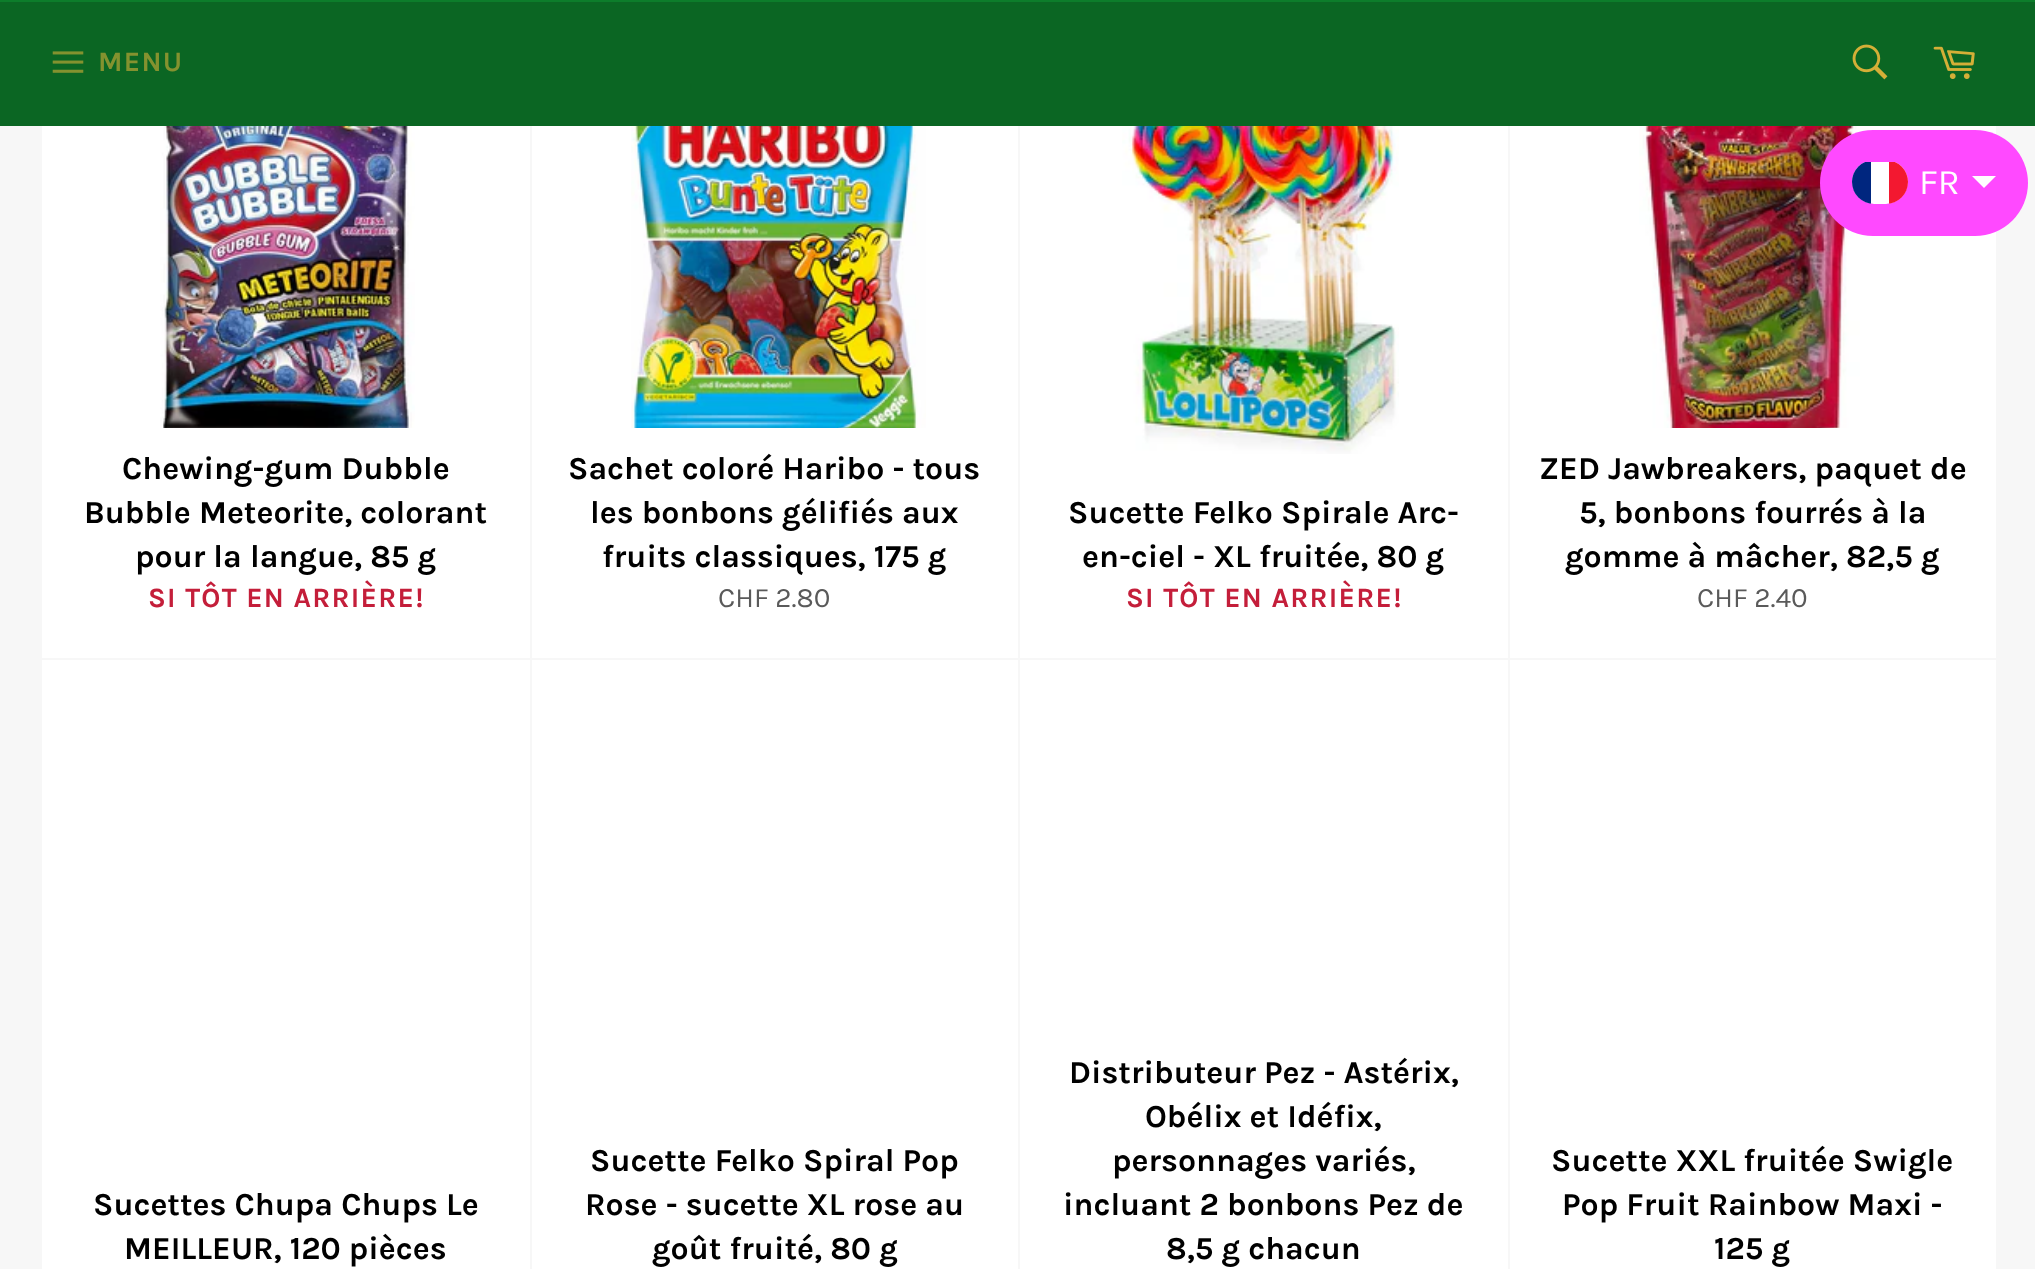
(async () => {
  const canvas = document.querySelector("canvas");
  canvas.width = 2035;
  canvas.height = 1269;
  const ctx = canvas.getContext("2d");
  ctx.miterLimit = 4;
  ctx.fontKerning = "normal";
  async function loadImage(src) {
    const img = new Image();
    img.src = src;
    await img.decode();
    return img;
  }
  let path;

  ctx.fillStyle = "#f7f7f7";
  ctx.fillRect(0, 0, 2035, 1269);
  ctx.fillStyle = "#0b6623";
  ctx.fillRect(0, 2, 2035, 124);
  ctx.fillStyle = "#0d7d2b";
  ctx.fillRect(0, 0, 2035, 2);
  ctx.drawImage(await loadImage("img/1.png"), 52, 51, 32, 22);
  ctx.drawImage(await loadImage("img/2.png"), 1852, 44, 36, 36);
  ctx.drawImage(await loadImage("img/3.png"), 1933, 46, 42, 33);
  ctx.fillStyle = "#ffffff";
  ctx.fillRect(1510, 126, 486, 532);
  ctx.drawImage(await loadImage("img/7.png"), 1639, 126, 221, 302);
  ctx.fillStyle = "#ff49ff";
  ctx.beginPath();
  ctx.roundRect(1820, 130, 208, 106, 53);
  ctx.fill();
  ctx.save();
  ctx.beginPath();
  ctx.roundRect(1852, 160, 56, 44, 22);
  ctx.clip();
  ctx.fillStyle = "#ffffff";
  ctx.beginPath();
  ctx.roundRect(1852, 162, 56, 42, [0, 0, 22, 22]);
  ctx.fill();
  ctx.fillStyle = "#00267f";
  ctx.fillRect(1852, 162, 19, 42);
  ctx.fillStyle = "#f31830";
  ctx.fillRect(1889, 162, 19, 42);
  ctx.restore();
  ctx.fillStyle = "#ffffff";
  path = new Path2D("M1972 176H1996L1984 188Z");
  ctx.fill(path);
  ctx.fillRect(42, 126, 488, 532);
  ctx.drawImage(await loadImage("img/4.png"), 160, 126, 255, 302);
  ctx.fillRect(532, 126, 486, 532);
  ctx.drawImage(await loadImage("img/5.png"), 631, 126, 295, 302);
  ctx.fillRect(1020, 126, 488, 532);
  ctx.drawImage(await loadImage("img/6.png"), 1122, 126, 277, 328);
  for (const [x, y, w, h, color] of [
    [42, 660, 488, 609, "#ffffff"],
    [532, 660, 486, 609, "#ffffff"],
    [1020, 660, 488, 609, "#ffffff"],
    [1510, 660, 486, 609, "#ffffff"],
  ]) {
    ctx.fillStyle = color;
    ctx.fillRect(x, y, w, h);
  }
  ctx.letterSpacing = "1.25px";
  ctx.font = "bold 28px Karla";
  ctx.fillStyle = "#84922f";
  ctx.fillText("MENU", 98, 71);
  ctx.letterSpacing = "0px";
  ctx.font = "36px Karla";
  ctx.fillStyle = "#ffffff";
  ctx.fillText("FR", 1919, 194);
  ctx.font = "bold 32px Karla";
  ctx.fillStyle = "#000000";
  for (const [text, x, y] of [
    ["Chewing-gum Dubble", 122, 479],
    ["Bubble Meteorite, colorant", 84, 523],
    ["pour la langue, 85 g", 135, 567],
  ]) {
    ctx.fillText(text, x, y);
  }
  ctx.letterSpacing = "1.25px";
  ctx.font = "bold 28px Karla";
  ctx.fillStyle = "#c41e3a";
  ctx.fillText("SI TÔT EN ARRIÈRE!", 148, 607);
  ctx.letterSpacing = "0px";
  ctx.font = "bold 32px Karla";
  ctx.fillStyle = "#000000";
  for (const [text, x, y] of [
    ["Sachet coloré Haribo - tous", 568, 479],
    ["les bonbons gélifiés aux", 590, 523],
    ["fruits classiques, 175 g", 602, 567],
  ]) {
    ctx.fillText(text, x, y);
  }
  ctx.font = "28px Karla";
  ctx.fillStyle = "#5a5a5a";
  ctx.fillText("CHF 2.80", 718, 607);
  ctx.font = "bold 32px Karla";
  ctx.fillStyle = "#000000";
  ctx.fillText("Sucette Felko Spirale Arc-", 1068, 523);
  ctx.fillText("en-ciel - XL fruitée, 80 g", 1082, 567);
  ctx.letterSpacing = "1.25px";
  ctx.font = "bold 28px Karla";
  ctx.fillStyle = "#c41e3a";
  ctx.fillText("SI TÔT EN ARRIÈRE!", 1126, 607);
  ctx.letterSpacing = "0px";
  ctx.font = "bold 32px Karla";
  ctx.fillStyle = "#000000";
  for (const [text, x, y] of [
    ["ZED Jawbreakers, paquet de", 1539, 479],
    ["5, bonbons fourrés à la", 1579, 523],
    ["gomme à mâcher, 82,5 g", 1565, 567],
  ]) {
    ctx.fillText(text, x, y);
  }
  ctx.font = "28px Karla";
  ctx.fillStyle = "#5a5a5a";
  ctx.fillText("CHF 2.40", 1697, 607);
  ctx.font = "bold 32px Karla";
  ctx.fillStyle = "#000000";
  for (const [text, x, y] of [
    ["Sucettes Chupa Chups Le", 93, 1215],
    ["MEILLEUR, 120 pièces", 124, 1259],
    ["Sucette Felko Spiral Pop", 590, 1171],
    ["Rose - sucette XL rose au", 585, 1215],
    ["goût fruité, 80 g", 652, 1259],
    ["Distributeur Pez - Astérix,", 1069, 1083],
    ["Obélix et Idéfix,", 1145, 1127],
    ["personnages variés,", 1112, 1171],
    ["incluant 2 bonbons Pez de", 1063, 1215],
    ["8,5 g chacun", 1166, 1259],
    ["Sucette XXL fruitée Swigle", 1551, 1171],
    ["Pop Fruit Rainbow Maxi -", 1562, 1215],
    ["125 g", 1714, 1259],
  ]) {
    ctx.fillText(text, x, y);
  }
})();
